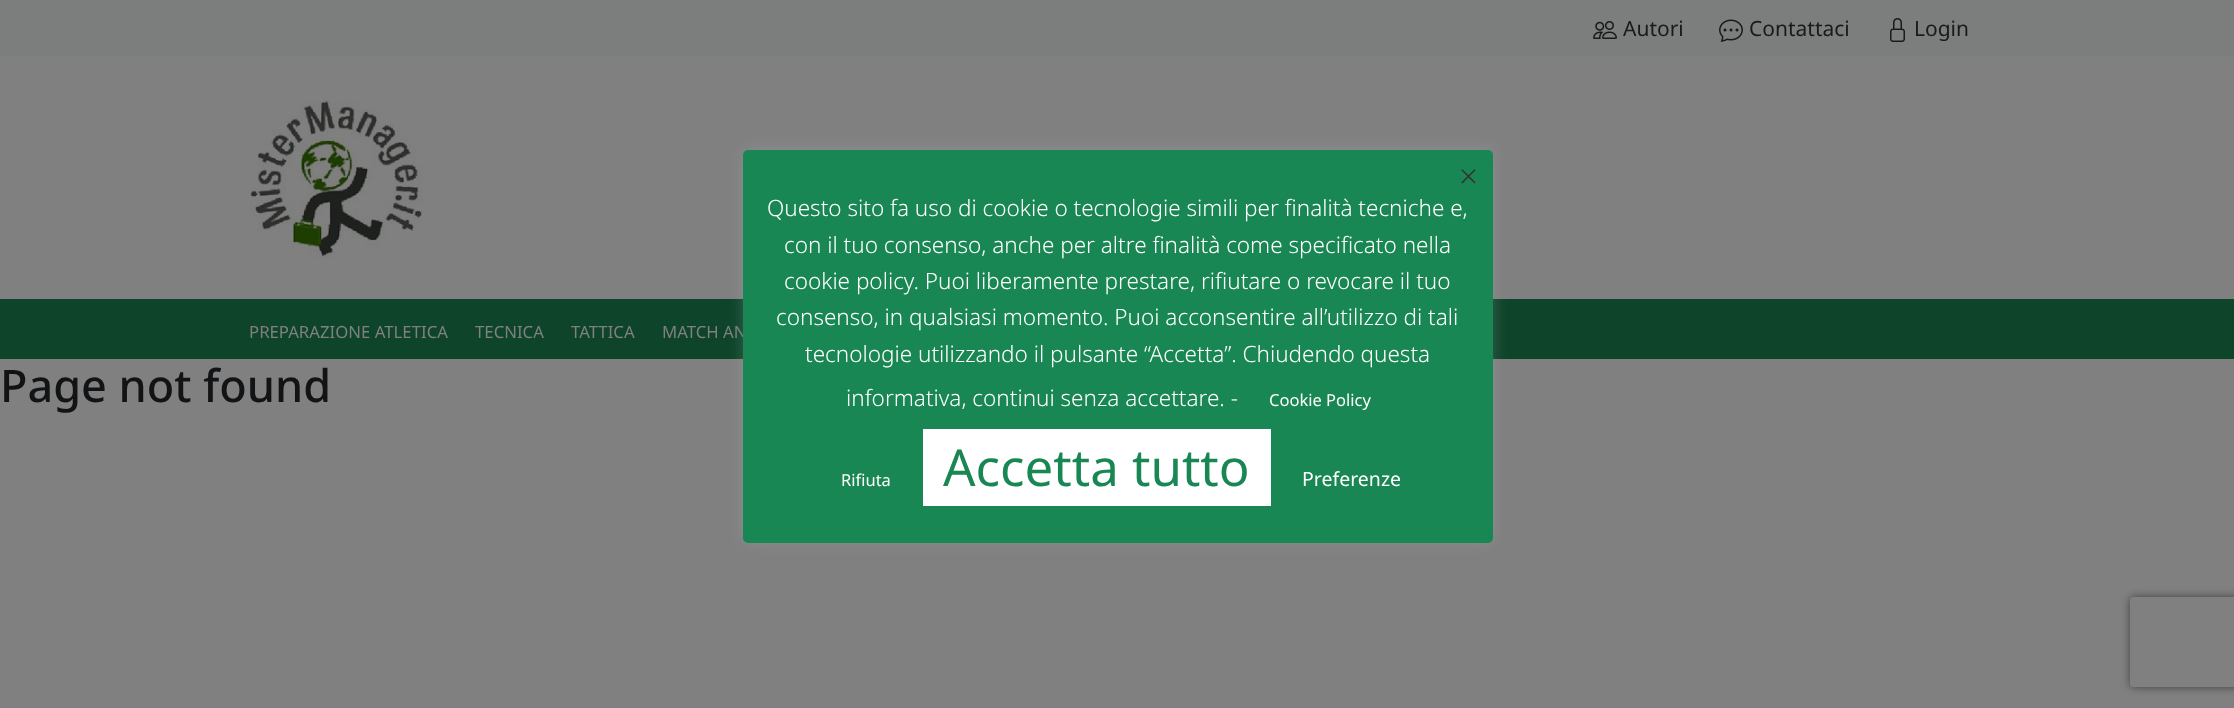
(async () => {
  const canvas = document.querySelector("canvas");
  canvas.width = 2234;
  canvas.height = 708;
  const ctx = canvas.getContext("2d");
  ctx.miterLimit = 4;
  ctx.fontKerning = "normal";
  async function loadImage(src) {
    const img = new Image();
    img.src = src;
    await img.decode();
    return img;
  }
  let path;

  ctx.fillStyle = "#808080";
  ctx.fillRect(0, 0, 2234, 708);
  ctx.fillStyle = "#7c7d7d";
  ctx.fillRect(0, 0, 2234, 56);
  ctx.drawImage(await loadImage("img/1.png"), 1593, 21, 24, 18);
  ctx.drawImage(await loadImage("img/2.png"), 1719, 19, 24, 23);
  ctx.drawImage(await loadImage("img/3.png"), 1890, 18, 15, 24);
  ctx.drawImage(await loadImage("img/4.png"), 250, 100, 173, 159);
  ctx.fillStyle = "#0d442a";
  ctx.fillRect(0, 299, 2234, 60);
  ctx.fillStyle = "rgba(172, 171, 171, 0.3)";
  ctx.filter = "blur(7.5px)";
  ctx.beginPath();
  ctx.roundRect(743, 149, 750, 393, 5);
  ctx.fill();
  ctx.filter = "none";
  ctx.save();
  path = new Path2D("M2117 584H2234V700H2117ZM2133 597H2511C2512.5 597 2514 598.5 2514 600V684C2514 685.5 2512.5 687 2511 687H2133C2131.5 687 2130 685.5 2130 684V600C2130 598.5 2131.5 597 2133 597Z");
  ctx.clip(path, "evenodd");
  ctx.fillStyle = "#404040";
  ctx.filter = "blur(4px)";
  ctx.beginPath();
  ctx.roundRect(2130, 597, 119, 90, 3);
  ctx.fill();
  ctx.filter = "none";
  ctx.restore();
  ctx.font = "21px Noto Sans";
  ctx.fillStyle = "#1a1a1a";
  for (const [text, x, y] of [
    ["Autori", 1623, 36],
    ["Contattaci", 1749, 36],
    ["Login", 1914, 36],
  ]) {
    ctx.fillText(text, x, y);
  }
  ctx.font = "16.75px Noto Sans";
  ctx.fillStyle = "#808080";
  for (const [text, x, y] of [
    ["PREPARAZIONE ATLETICA", 249, 338],
    ["TECNICA", 475, 338],
    ["TATTICA", 571, 338],
    ["MATCH AN", 662, 338],
  ]) {
    ctx.fillText(text, x, y);
  }
  ctx.fillStyle = "#198754";
  ctx.beginPath();
  ctx.roundRect(743, 150, 750, 393, 5);
  ctx.fill();
  ctx.font = "300 33px Noto Sans";
  ctx.fillStyle = "#333333";
  ctx.fillText("×", 1459, 188);
  ctx.font = "300 22.5px Noto Sans";
  ctx.fillStyle = "#ffffff";
  for (const [text, x, y] of [
    ["Questo sito fa uso di cookie o tecnologie simili per finalità tecniche e,", 767, 216],
    ["con il tuo consenso, anche per altre finalità come specificato nella", 784, 253],
    ["cookie policy. Puoi liberamente prestare, rifiutare o revocare il tuo", 784, 289],
    ["consenso, in qualsiasi momento. Puoi acconsentire all’utilizzo di tali", 776, 325],
    ["tecnologie utilizzando il pulsante “Accetta”. Chiudendo questa", 805, 362],
    ["informativa, continui senza accettare. -", 846, 406],
  ]) {
    ctx.fillText(text, x, y);
  }
  ctx.font = "16.5px Noto Sans";
  ctx.fillText("Cookie Policy", 1269, 406);
  ctx.fillText("Rifiuta", 841, 486);
  ctx.fillRect(923, 429, 348, 77);
  ctx.font = "51px Noto Sans";
  ctx.fillStyle = "#198754";
  ctx.fillText("Accetta tutto", 943, 486);
  ctx.font = "19.5px Noto Sans";
  ctx.fillStyle = "#ffffff";
  ctx.fillText("Preferenze", 1302, 486);
  ctx.font = "500 45px Noto Sans";
  ctx.fillStyle = "#111315";
  ctx.fillText("Page not found", 0, 402);
})();
